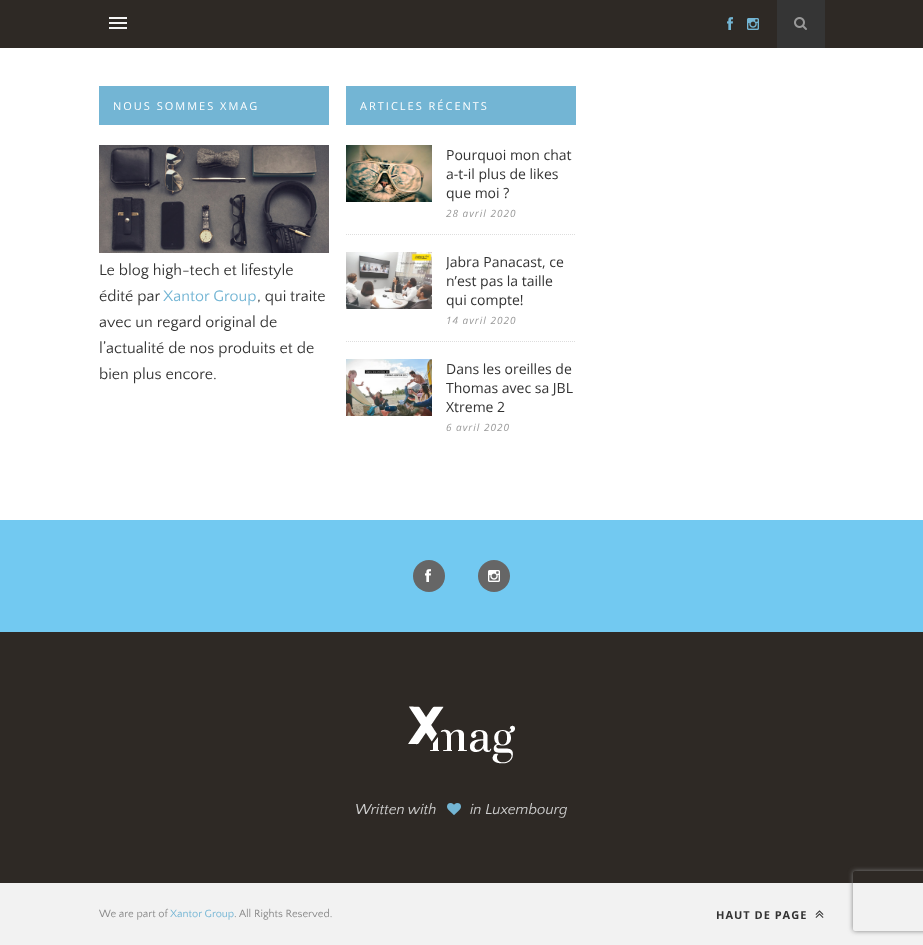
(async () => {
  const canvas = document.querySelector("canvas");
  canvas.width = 923;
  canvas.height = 945;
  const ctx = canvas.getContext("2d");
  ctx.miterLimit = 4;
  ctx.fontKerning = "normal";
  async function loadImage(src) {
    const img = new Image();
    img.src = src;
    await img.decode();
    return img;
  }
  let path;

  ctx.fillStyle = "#ffffff";
  ctx.fillRect(0, 0, 923, 945);
  for (const [x, y, w, h, color] of [
    [0, 0, 923, 48, "#2e2925"],
    [109, 17, 18, 2, "#f5f5f5"],
    [109, 22, 18, 2, "#f5f5f5"],
    [109, 27, 18, 2, "#f5f5f5"],
  ]) {
    ctx.fillStyle = color;
    ctx.fillRect(x, y, w, h);
  }
  ctx.drawImage(await loadImage("img/1.png"), 727, 17, 6, 13);
  ctx.drawImage(await loadImage("img/2.png"), 747, 18, 12, 12);
  ctx.fillStyle = "#353535";
  ctx.fillRect(777, 0, 48, 48);
  ctx.drawImage(await loadImage("img/3.png"), 794, 17, 13, 13);
  ctx.fillStyle = "#73b5d4";
  ctx.fillRect(99, 86, 230, 39);
  ctx.drawImage(await loadImage("img/4.png"), 99, 145, 230, 108);
  ctx.fillRect(346, 86, 230, 39);
  path = new Path2D("M346 234.5H576");
  ctx.strokeStyle = "#dddddd";
  ctx.setLineDash([1, 1]);
  ctx.stroke(path);
  ctx.drawImage(await loadImage("img/5.png"), 346, 145, 86, 57);
  path = new Path2D("M346 341.5H576");
  ctx.stroke(path);
  ctx.drawImage(await loadImage("img/6.png"), 346, 252, 86, 57);
  ctx.drawImage(await loadImage("img/7.png"), 346, 359, 86, 57);
  ctx.fillStyle = "#72c9f1";
  ctx.fillRect(0, 520, 923, 112);
  ctx.fillStyle = "#666666";
  ctx.beginPath();
  ctx.arc(429, 576, 16, 0, Math.PI * 2);
  ctx.fill();
  ctx.drawImage(await loadImage("img/8.png"), 425, 569, 6, 13);
  ctx.beginPath();
  ctx.arc(494, 576, 16, 0, Math.PI * 2);
  ctx.fill();
  ctx.drawImage(await loadImage("img/9.png"), 488, 570, 12, 12);
  ctx.fillStyle = "#2e2925";
  ctx.fillRect(0, 632, 923, 251);
  ctx.drawImage(await loadImage("img/10.png"), 408, 706, 107, 58);
  ctx.drawImage(await loadImage("img/11.png"), 447, 803, 14, 12);
  ctx.fillStyle = "#f2f2f2";
  ctx.fillRect(0, 883, 923, 62);
  ctx.drawImage(await loadImage("img/12.png"), 815, 910, 9, 8);
  ctx.save();
  path = new Path2D("M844 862H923V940H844ZM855 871H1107C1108 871 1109 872 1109 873V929C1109 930 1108 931 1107 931H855C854 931 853 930 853 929V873C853 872 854 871 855 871Z");
  ctx.clip(path, "evenodd");
  ctx.fillStyle = "#808080";
  ctx.filter = "blur(2.5px)";
  ctx.beginPath();
  ctx.roundRect(853, 871, 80, 60, 2);
  ctx.fill();
  ctx.filter = "none";
  ctx.restore();
  ctx.letterSpacing = "2px";
  ctx.font = "11px Open Sans";
  ctx.fillStyle = "#ffffff";
  ctx.fillText("NOUS SOMMES XMAG", 113, 110);
  ctx.letterSpacing = "0px";
  ctx.font = "16px Quattrocento Sans";
  ctx.fillStyle = "#333333";
  ctx.fillText("Le blog high-tech et lifestyle", 99, 275);
  ctx.fillText("édité par", 99, 301);
  ctx.fillStyle = "#73b5d4";
  ctx.fillText("Xantor Group", 163, 301);
  ctx.fillStyle = "#333333";
  for (const [text, x, y] of [
    [", qui traite", 257, 301],
    ["avec un regard original de", 99, 327],
    ["l’actualité de nos produits et de", 99, 353],
    ["bien plus encore.", 99, 379],
  ]) {
    ctx.fillText(text, x, y);
  }
  ctx.letterSpacing = "2px";
  ctx.font = "11px Open Sans";
  ctx.fillStyle = "#ffffff";
  ctx.fillText("ARTICLES RÉCENTS", 360, 110);
  ctx.letterSpacing = "0px";
  ctx.font = "14px Open Sans";
  ctx.fillStyle = "#333333";
  for (const [text, x, y] of [
    ["Pourquoi mon chat", 446, 160],
    ["a-t-il plus de likes", 446, 179],
    ["que moi ?", 446, 198],
  ]) {
    ctx.fillText(text, x, y);
  }
  ctx.letterSpacing = "1px";
  ctx.font = "italic 10px Open Sans";
  ctx.fillStyle = "#999999";
  ctx.fillText("28 avril 2020", 446, 217);
  ctx.save();
  ctx.beginPath();
  ctx.rect(446, 252, 130, 76);
  ctx.clip();
  ctx.letterSpacing = "0px";
  ctx.font = "14px Open Sans";
  ctx.fillStyle = "#333333";
  ctx.fillText("Jabra Panacast, ce", 446, 267);
  ctx.restore();
  ctx.letterSpacing = "0px";
  ctx.font = "14px Open Sans";
  ctx.fillStyle = "#333333";
  ctx.fillText("n’est pas la taille", 446, 286);
  ctx.fillText("qui compte!", 446, 305);
  ctx.letterSpacing = "1px";
  ctx.font = "italic 10px Open Sans";
  ctx.fillStyle = "#999999";
  ctx.fillText("14 avril 2020", 446, 324);
  ctx.letterSpacing = "0px";
  ctx.font = "14px Open Sans";
  ctx.fillStyle = "#333333";
  for (const [text, x, y] of [
    ["Dans les oreilles de", 446, 374],
    ["Thomas avec sa JBL", 446, 393],
    ["Xtreme 2", 446, 412],
  ]) {
    ctx.fillText(text, x, y);
  }
  ctx.letterSpacing = "1px";
  ctx.font = "italic 10px Open Sans";
  ctx.fillStyle = "#999999";
  ctx.fillText("6 avril 2020", 446, 431);
  ctx.letterSpacing = "0px";
  ctx.font = "italic 15px Quattrocento Sans";
  ctx.fillStyle = "#cecece";
  ctx.fillText("Written with", 355, 814);
  ctx.fillText("in Luxembourg", 470, 814);
  ctx.font = "11px Quattrocento Sans";
  ctx.fillStyle = "#888888";
  ctx.fillText("We are part of", 99, 917);
  ctx.fillStyle = "#73b5d4";
  ctx.fillText("Xantor Group", 170, 917);
  ctx.fillStyle = "#888888";
  ctx.fillText(". All Rights Reserved.", 234, 917);
  ctx.letterSpacing = "1px";
  ctx.font = "bold 11px Open Sans";
  ctx.fillStyle = "#333333";
  ctx.fillText("HAUT DE PAGE", 716, 919);
})();
